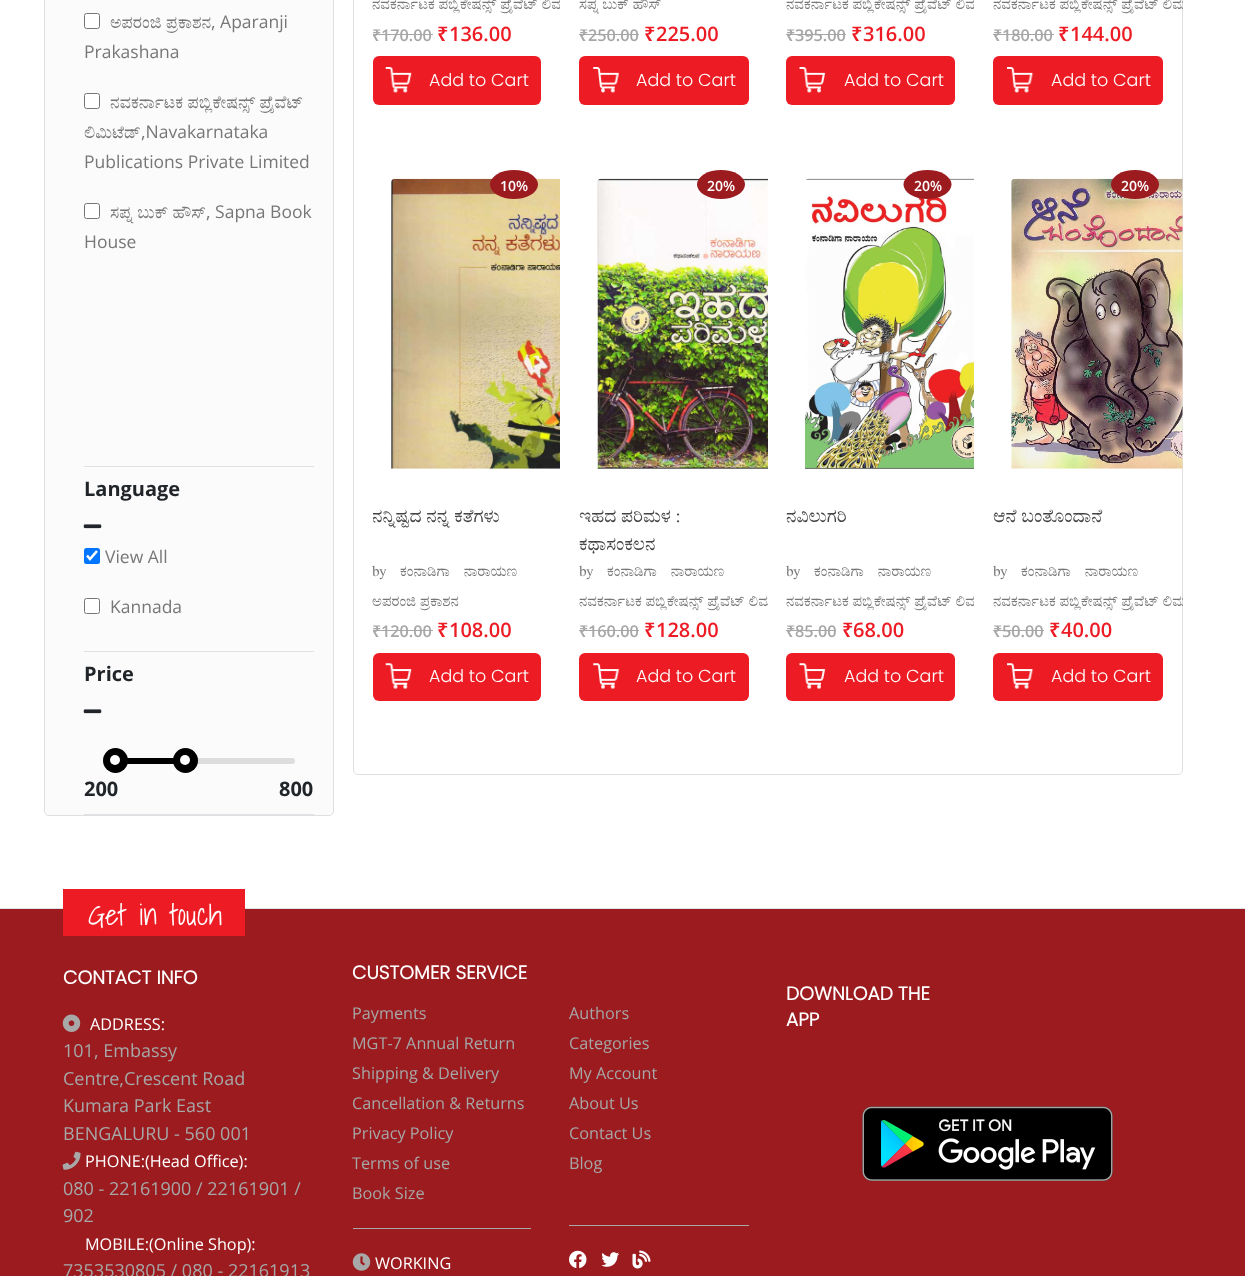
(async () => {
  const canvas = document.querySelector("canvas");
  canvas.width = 1245;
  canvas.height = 1276;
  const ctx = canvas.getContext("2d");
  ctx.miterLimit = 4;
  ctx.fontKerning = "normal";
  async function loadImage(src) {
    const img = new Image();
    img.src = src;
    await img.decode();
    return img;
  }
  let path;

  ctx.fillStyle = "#ffffff";
  ctx.fillRect(0, 0, 1245, 1276);
  ctx.fillStyle = "#fbfbfb";
  ctx.beginPath();
  ctx.roundRect(45, -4, 288, 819, 4);
  ctx.fill();
  ctx.beginPath();
  ctx.roundRect(44.5, -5.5, 289, 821, 4.5);
  ctx.strokeStyle = "#dfdfdf";
  ctx.stroke();
  ctx.fillStyle = "#dee2e6";
  ctx.fillRect(84, 466, 230, 1);
  ctx.fillStyle = "#ffffff";
  ctx.beginPath();
  ctx.roundRect(84.5, 13.5, 15, 15, 2);
  ctx.fill();
  ctx.strokeStyle = "#767676";
  ctx.stroke();
  ctx.beginPath();
  ctx.roundRect(84.5, 93.5, 15, 15, 2);
  ctx.fill();
  ctx.stroke();
  ctx.beginPath();
  ctx.roundRect(84.5, 203.5, 15, 15, 2);
  ctx.fill();
  ctx.stroke();
  ctx.fillStyle = "#dee2e6";
  ctx.fillRect(84, 651, 230, 1);
  ctx.drawImage(await loadImage("img/1.png"), 83, 524, 19, 5);
  ctx.fillStyle = "#0075ff";
  ctx.beginPath();
  ctx.roundRect(84, 548, 16, 16, 2.5);
  ctx.fill();
  path = new Path2D("M87 555.5L90 559L97 551");
  ctx.strokeStyle = "#ffffff";
  ctx.lineWidth = 2.6;
  ctx.stroke(path);
  ctx.fillStyle = "#ffffff";
  ctx.beginPath();
  ctx.roundRect(84.5, 598.5, 15, 15, 2);
  ctx.fill();
  ctx.strokeStyle = "#767676";
  ctx.lineWidth = 1;
  ctx.stroke();
  ctx.fillStyle = "#dee2e6";
  ctx.fillRect(84, 814, 230, 1);
  ctx.drawImage(await loadImage("img/1.png"), 83, 709, 19, 5);
  ctx.fillStyle = "#dddddd";
  ctx.beginPath();
  ctx.roundRect(103, 758, 192, 6, 3);
  ctx.fill();
  ctx.fillStyle = "#000000";
  ctx.fillRect(121, 758, 58, 6);
  ctx.beginPath();
  ctx.arc(115.5, 760.5, 12.5, 0, Math.PI * 2);
  ctx.fill();
  ctx.fillStyle = "#ffffff";
  ctx.beginPath();
  ctx.arc(115, 760, 5, 0, Math.PI * 2);
  ctx.fill();
  ctx.fillStyle = "#000000";
  ctx.beginPath();
  ctx.arc(185.5, 760.5, 12.5, 0, Math.PI * 2);
  ctx.fill();
  ctx.fillStyle = "#ffffff";
  ctx.beginPath();
  ctx.arc(185, 760, 5, 0, Math.PI * 2);
  ctx.fill();
  ctx.beginPath();
  ctx.roundRect(353.5, -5.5, 829, 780, 4.5);
  ctx.strokeStyle = "#dfdfdf";
  ctx.stroke();
  ctx.fillStyle = "#a7a7a7";
  ctx.fillRect(373, 34, 60, 1);
  ctx.fillStyle = "#ed1c24";
  ctx.beginPath();
  ctx.roundRect(373, 56, 168, 49, 6);
  ctx.fill();
  ctx.drawImage(await loadImage("img/2.png"), 385, 67, 27, 26);
  ctx.fillStyle = "#a7a7a7";
  ctx.fillRect(786, 34, 60, 1);
  ctx.fillStyle = "#ed1c24";
  ctx.beginPath();
  ctx.roundRect(786, 56, 169, 49, 6);
  ctx.fill();
  ctx.drawImage(await loadImage("img/4.png"), 799, 67, 27, 26);
  ctx.drawImage(await loadImage("img/6.png"), 391, 178, 169, 291);
  ctx.fillStyle = "#9b1b1f";
  ctx.beginPath();
  ctx.ellipse(514, 184.5, 24, 14.5, 0, 0, Math.PI * 2);
  ctx.fill();
  ctx.fillStyle = "#a7a7a7";
  ctx.fillRect(373, 630, 60, 1);
  ctx.fillStyle = "#ed1c24";
  ctx.beginPath();
  ctx.roundRect(373, 653, 168, 48, 6);
  ctx.fill();
  ctx.drawImage(await loadImage("img/7.png"), 385, 663, 27, 26);
  ctx.drawImage(await loadImage("img/8.png"), 597, 178, 171, 291);
  ctx.fillStyle = "#9b1b1f";
  ctx.beginPath();
  ctx.ellipse(721, 184.5, 24, 14.5, 0, 0, Math.PI * 2);
  ctx.fill();
  ctx.fillStyle = "#a7a7a7";
  ctx.fillRect(579, 630, 60, 1);
  ctx.fillStyle = "#ed1c24";
  ctx.beginPath();
  ctx.roundRect(579, 653, 170, 48, 6);
  ctx.fill();
  ctx.drawImage(await loadImage("img/9.png"), 593, 663, 27, 26);
  for (const [x, y, w, h, color] of [
    [0, 909, 1245, 367, "#9b1b1f"],
    [0, 908, 1245, 1, "#dee2e6"],
    [63, 889, 182, 47, "#ed1c24"],
  ]) {
    ctx.fillStyle = color;
    ctx.fillRect(x, y, w, h);
  }
  ctx.drawImage(await loadImage("img/14.png"), 62, 1014, 19, 18);
  ctx.drawImage(await loadImage("img/15.png"), 62, 1151, 19, 19);
  ctx.fillStyle = "#a8a8a8";
  ctx.fillRect(353, 1228, 178, 1);
  ctx.drawImage(await loadImage("img/16.png"), 352, 1253, 19, 18);
  ctx.fillRect(569, 1225, 180, 1);
  ctx.drawImage(await loadImage("img/17.png"), 569, 1250, 18, 19);
  ctx.drawImage(await loadImage("img/18.png"), 601, 1252, 18, 15);
  ctx.drawImage(await loadImage("img/19.png"), 632, 1250, 19, 19);
  ctx.drawImage(await loadImage("img/20.png"), 862, 1106, 251, 75);
  ctx.font = "17.5px FreeSerif";
  ctx.fillStyle = "#777777";
  ctx.fillText("ಅಪರಂಜಿ ಪ್ರಕಾಶನ", 110, 28);
  ctx.font = "17.5px Open Sans";
  ctx.fillText(", Aparanji", 211, 28);
  ctx.fillText("Prakashana", 84, 58);
  ctx.font = "17.5px FreeSerif";
  ctx.fillText("ನವಕರ್ನಾಟಕ ಪಬ್ಲಿಕೇಷನ್ಸ್ ಪ್ರೈವೆಟ್", 110, 108);
  ctx.fillText("ಲಿಮಿಟೆಡ್", 84, 138);
  ctx.font = "17.5px Open Sans";
  ctx.fillText(",Navakarnataka", 141, 138);
  ctx.fillText("Publications Private Limited", 84, 168);
  ctx.font = "17.5px FreeSerif";
  ctx.fillText("ಸಪ್ನ ಬುಕ್ ಹೌಸ್", 110, 218);
  ctx.font = "17.5px Open Sans";
  ctx.fillText(", Sapna Book", 206, 218);
  ctx.fillText("House", 84, 248);
  ctx.font = "bold 20px Open Sans";
  ctx.fillStyle = "#212529";
  ctx.fillText("Language", 84, 496);
  ctx.font = "17.5px Open Sans";
  ctx.fillStyle = "#777777";
  ctx.fillText("View All", 105, 563);
  ctx.fillText("Kannada", 110, 613);
  ctx.font = "bold 20px Open Sans";
  ctx.fillStyle = "#212529";
  for (const [text, x, y] of [
    ["Price", 84, 681],
    ["200", 84, 796],
    ["800", 279, 796],
  ]) {
    ctx.fillText(text, x, y);
  }
  ctx.font = "15px FreeSerif";
  ctx.fillStyle = "#777777";
  ctx.fillText("ನವಕರ್ನಾಟಕ ಪಬ್ಲಿಕೇಷನ್ಸ್ ಪ್ರೈವೆಟ್ ಲಿಮ", 372, 9);
  ctx.font = "600 16.25px Noto Sans";
  ctx.fillStyle = "#a7a7a7";
  ctx.fillText("₹", 372, 41);
  ctx.font = "600 16.25px Open Sans";
  ctx.fillText("170.00", 381, 41);
  ctx.font = "600 20px Noto Sans";
  ctx.fillStyle = "#ed1c24";
  ctx.fillText("₹", 437, 41);
  ctx.font = "600 20px Open Sans";
  ctx.fillText("136.00", 449, 41);
  ctx.font = "300 17.5px Poppins";
  ctx.fillStyle = "#ffffff";
  ctx.fillText("Add to Cart", 429, 86);
  ctx.beginPath();
  ctx.roundRect(560, -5, 208, 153, 5);
  ctx.fill();
  ctx.font = "15px FreeSerif";
  ctx.fillStyle = "#777777";
  ctx.fillText("ಸಪ್ನ ಬುಕ್ ಹೌಸ್", 579, 9);
  ctx.font = "600 16.25px Noto Sans";
  ctx.fillStyle = "#a7a7a7";
  ctx.fillText("₹", 579, 41);
  ctx.fillRect(579, 34, 60, 1);
  ctx.font = "600 16.25px Open Sans";
  ctx.fillText("250.00", 588, 41);
  ctx.font = "600 20px Noto Sans";
  ctx.fillStyle = "#ed1c24";
  ctx.fillText("₹", 644, 41);
  ctx.font = "600 20px Open Sans";
  ctx.fillText("225.00", 656, 41);
  ctx.beginPath();
  ctx.roundRect(579, 56, 170, 49, 6);
  ctx.fill();
  ctx.drawImage(await loadImage("img/3.png"), 593, 67, 27, 26);
  ctx.font = "300 17.5px Poppins";
  ctx.fillStyle = "#ffffff";
  ctx.fillText("Add to Cart", 636, 86);
  ctx.font = "15px FreeSerif";
  ctx.fillStyle = "#777777";
  ctx.fillText("ನವಕರ್ನಾಟಕ ಪಬ್ಲಿಕೇಷನ್ಸ್ ಪ್ರೈವೆಟ್ ಲಿಮ", 786, 9);
  ctx.font = "600 16.25px Noto Sans";
  ctx.fillStyle = "#a7a7a7";
  ctx.fillText("₹", 786, 41);
  ctx.font = "600 16.25px Open Sans";
  ctx.fillText("395.00", 795, 41);
  ctx.font = "600 20px Noto Sans";
  ctx.fillStyle = "#ed1c24";
  ctx.fillText("₹", 851, 41);
  ctx.font = "600 20px Open Sans";
  ctx.fillText("316.00", 863, 41);
  ctx.font = "300 17.5px Poppins";
  ctx.fillStyle = "#ffffff";
  ctx.fillText("Add to Cart", 844, 86);
  ctx.beginPath();
  ctx.roundRect(974, -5, 207, 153, 5);
  ctx.fill();
  ctx.save();
  ctx.beginPath();
  ctx.rect(353, 0, 830, 775);
  ctx.clip();
  ctx.font = "15px FreeSerif";
  ctx.fillStyle = "#777777";
  ctx.fillText("ನವಕರ್ನಾಟಕ ಪಬ್ಲಿಕೇಷನ್ಸ್ ಪ್ರೈವೆಟ್ ಲಿಮ", 993, 9);
  ctx.restore();
  ctx.font = "600 16.25px Noto Sans";
  ctx.fillStyle = "#a7a7a7";
  ctx.fillText("₹", 993, 41);
  ctx.fillRect(993, 34, 61, 1);
  ctx.font = "600 16.25px Open Sans";
  ctx.fillText("180.00", 1002, 41);
  ctx.font = "600 20px Noto Sans";
  ctx.fillStyle = "#ed1c24";
  ctx.fillText("₹", 1058, 41);
  ctx.font = "600 20px Open Sans";
  ctx.fillText("144.00", 1070, 41);
  ctx.beginPath();
  ctx.roundRect(993, 56, 170, 49, 6);
  ctx.fill();
  ctx.drawImage(await loadImage("img/5.png"), 1007, 67, 27, 26);
  ctx.font = "300 17.5px Poppins";
  ctx.fillStyle = "#ffffff";
  ctx.fillText("Add to Cart", 1051, 86);
  ctx.font = "600 14px Open Sans";
  ctx.fillText("10%", 500, 191);
  ctx.save();
  ctx.beginPath();
  ctx.rect(373, 500, 168, 53);
  ctx.clip();
  ctx.font = "18.75px FreeSerif";
  ctx.fillStyle = "#444444";
  ctx.fillText("ನನ್ನಿಷ್ಟದ ನನ್ನ ಕತೆಗಳು", 372, 522);
  ctx.restore();
  ctx.wordSpacing = "10px";
  ctx.font = "15px FreeSerif";
  ctx.fillStyle = "#777777";
  ctx.fillText("by ಕಂನಾಡಿಗಾ ನಾರಾಯಣ", 372, 576);
  ctx.wordSpacing = "0px";
  ctx.fillText("ಅಪರಂಜಿ ಪ್ರಕಾಶನ", 372, 606);
  ctx.font = "600 16.25px Noto Sans";
  ctx.fillStyle = "#a7a7a7";
  ctx.fillText("₹", 372, 637);
  ctx.font = "600 16.25px Open Sans";
  ctx.fillText("120.00", 381, 637);
  ctx.font = "600 20px Noto Sans";
  ctx.fillStyle = "#ed1c24";
  ctx.fillText("₹", 437, 637);
  ctx.font = "600 20px Open Sans";
  ctx.fillText("108.00", 449, 637);
  ctx.font = "300 17.5px Poppins";
  ctx.fillStyle = "#ffffff";
  ctx.fillText("Add to Cart", 429, 682);
  ctx.font = "600 14px Open Sans";
  ctx.fillText("20%", 707, 191);
  ctx.font = "18.75px FreeSerif";
  ctx.fillStyle = "#444444";
  ctx.fillText("ಇಹದ ಪರಿಮಳ :", 579, 522);
  ctx.fillText("ಕಥಾಸಂಕಲನ", 579, 550);
  ctx.wordSpacing = "10px";
  ctx.font = "15px FreeSerif";
  ctx.fillStyle = "#777777";
  ctx.fillText("by ಕಂನಾಡಿಗಾ ನಾರಾಯಣ", 579, 576);
  ctx.wordSpacing = "0px";
  ctx.fillText("ನವಕರ್ನಾಟಕ ಪಬ್ಲಿಕೇಷನ್ಸ್ ಪ್ರೈವೆಟ್ ಲಿಮ", 579, 606);
  ctx.font = "600 16.25px Noto Sans";
  ctx.fillStyle = "#a7a7a7";
  ctx.fillText("₹", 579, 637);
  ctx.font = "600 16.25px Open Sans";
  ctx.fillText("160.00", 588, 637);
  ctx.font = "600 20px Noto Sans";
  ctx.fillStyle = "#ed1c24";
  ctx.fillText("₹", 644, 637);
  ctx.font = "600 20px Open Sans";
  ctx.fillText("128.00", 656, 637);
  ctx.font = "300 17.5px Poppins";
  ctx.fillStyle = "#ffffff";
  ctx.fillText("Add to Cart", 636, 682);
  ctx.beginPath();
  ctx.roundRect(768, 148, 206, 596, 5);
  ctx.fill();
  ctx.drawImage(await loadImage("img/10.png"), 805, 178, 169, 291);
  ctx.fillStyle = "#9b1b1f";
  ctx.beginPath();
  ctx.ellipse(927.5, 184.5, 24, 14.5, 0, 0, Math.PI * 2);
  ctx.fill();
  ctx.font = "600 14px Open Sans";
  ctx.fillStyle = "#ffffff";
  ctx.fillText("20%", 914, 191);
  ctx.font = "18.75px FreeSerif";
  ctx.fillStyle = "#444444";
  ctx.fillText("ನವಿಲುಗರಿ", 786, 522);
  ctx.wordSpacing = "10px";
  ctx.font = "15px FreeSerif";
  ctx.fillStyle = "#777777";
  ctx.fillText("by ಕಂನಾಡಿಗಾ ನಾರಾಯಣ", 786, 576);
  ctx.wordSpacing = "0px";
  ctx.fillText("ನವಕರ್ನಾಟಕ ಪಬ್ಲಿಕೇಷನ್ಸ್ ಪ್ರೈವೆಟ್ ಲಿಮ", 786, 606);
  ctx.font = "600 16.25px Noto Sans";
  ctx.fillStyle = "#a7a7a7";
  ctx.fillText("₹", 786, 637);
  ctx.fillRect(786, 630, 50, 1);
  ctx.font = "600 16.25px Open Sans";
  ctx.fillText("85.00", 795, 637);
  ctx.font = "600 20px Noto Sans";
  ctx.fillStyle = "#ed1c24";
  ctx.fillText("₹", 842, 637);
  ctx.font = "600 20px Open Sans";
  ctx.fillText("68.00", 853, 637);
  ctx.beginPath();
  ctx.roundRect(786, 653, 169, 48, 6);
  ctx.fill();
  ctx.drawImage(await loadImage("img/11.png"), 799, 663, 27, 26);
  ctx.font = "300 17.5px Poppins";
  ctx.fillStyle = "#ffffff";
  ctx.fillText("Add to Cart", 844, 682);
  ctx.beginPath();
  ctx.roundRect(974, 148, 207, 596, 5);
  ctx.fill();
  ctx.drawImage(await loadImage("img/12.png"), 1011, 178, 172, 291);
  ctx.fillStyle = "#9b1b1f";
  ctx.beginPath();
  ctx.ellipse(1135, 184.5, 24, 14.5, 0, 0, Math.PI * 2);
  ctx.fill();
  ctx.font = "600 14px Open Sans";
  ctx.fillStyle = "#ffffff";
  ctx.fillText("20%", 1121, 191);
  ctx.font = "18.75px FreeSerif";
  ctx.fillStyle = "#444444";
  ctx.fillText("ಆನೆ ಬಂತೊಂದಾನೆ", 993, 522);
  ctx.wordSpacing = "10px";
  ctx.font = "15px FreeSerif";
  ctx.fillStyle = "#777777";
  ctx.fillText("by ಕಂನಾಡಿಗಾ ನಾರಾಯಣ", 993, 576);
  ctx.save();
  ctx.beginPath();
  ctx.rect(353, 0, 830, 775);
  ctx.clip();
  ctx.wordSpacing = "0px";
  ctx.fillText("ನವಕರ್ನಾಟಕ ಪಬ್ಲಿಕೇಷನ್ಸ್ ಪ್ರೈವೆಟ್ ಲಿಮ", 993, 606);
  ctx.restore();
  ctx.wordSpacing = "0px";
  ctx.font = "600 16.25px Noto Sans";
  ctx.fillStyle = "#a7a7a7";
  ctx.fillText("₹", 993, 637);
  ctx.fillRect(993, 630, 51, 1);
  ctx.font = "600 16.25px Open Sans";
  ctx.fillText("50.00", 1002, 637);
  ctx.font = "600 20px Noto Sans";
  ctx.fillStyle = "#ed1c24";
  ctx.fillText("₹", 1049, 637);
  ctx.font = "600 20px Open Sans";
  ctx.fillText("40.00", 1061, 637);
  ctx.beginPath();
  ctx.roundRect(993, 653, 170, 48, 6);
  ctx.fill();
  ctx.drawImage(await loadImage("img/13.png"), 1007, 663, 27, 26);
  ctx.font = "300 17.5px Poppins";
  ctx.fillStyle = "#ffffff";
  ctx.fillText("Add to Cart", 1051, 682);
  ctx.font = "29px Shadows Into Light";
  ctx.fillText("Get in touch", 88, 925);
  ctx.font = "bold 18.75px Poppins";
  ctx.fillText("CONTACT INFO", 63, 984);
  ctx.font = "16.25px Open Sans";
  ctx.fillText("ADDRESS:", 90, 1030);
  ctx.font = "18px Open Sans";
  ctx.fillStyle = "#a7a7a7";
  for (const [text, x, y] of [
    ["101, Embassy", 63, 1057],
    ["Centre,Crescent Road", 63, 1085],
    ["Kumara Park East", 63, 1112],
    ["BENGALURU - 560 001", 63, 1140],
  ]) {
    ctx.fillText(text, x, y);
  }
  ctx.font = "16.25px Open Sans";
  ctx.fillStyle = "#ffffff";
  ctx.fillText("PHONE:(Head Office):", 85, 1167);
  ctx.font = "18px Open Sans";
  ctx.fillStyle = "#a7a7a7";
  ctx.fillText("080 - 22161900 / 22161901 /", 63, 1195);
  ctx.fillText("902", 63, 1222);
  ctx.font = "16.25px Open Sans";
  ctx.fillStyle = "#ffffff";
  ctx.fillText("MOBILE:(Online Shop):", 85, 1250);
  ctx.font = "18px Open Sans";
  ctx.fillStyle = "#a7a7a7";
  ctx.fillText("7353530805 / 080 - 22161913", 63, 1277);
  ctx.font = "bold 18.75px Poppins";
  ctx.fillStyle = "#ffffff";
  ctx.fillText("CUSTOMER SERVICE", 352, 979);
  ctx.font = "16.25px Open Sans";
  ctx.fillStyle = "#a7a7a7";
  for (const [text, x, y] of [
    ["Payments", 352, 1019],
    ["MGT-7 Annual Return", 352, 1049],
    ["Shipping & Delivery", 352, 1079],
    ["Cancellation & Returns", 352, 1109],
    ["Privacy Policy", 352, 1139],
    ["Terms of use", 352, 1169],
    ["Book Size", 352, 1199],
  ]) {
    ctx.fillText(text, x, y);
  }
  ctx.fillStyle = "#ffffff";
  ctx.fillText("WORKING", 375, 1269);
  ctx.fillStyle = "#a7a7a7";
  for (const [text, x, y] of [
    ["Authors", 569, 1019],
    ["Categories", 569, 1049],
    ["My Account", 569, 1079],
    ["About Us", 569, 1109],
    ["Contact Us", 569, 1139],
    ["Blog", 569, 1169],
  ]) {
    ctx.fillText(text, x, y);
  }
  ctx.font = "bold 18.75px Poppins";
  ctx.fillStyle = "#ffffff";
  ctx.fillText("DOWNLOAD THE", 786, 1000);
  ctx.fillText("APP", 786, 1026);
})();
